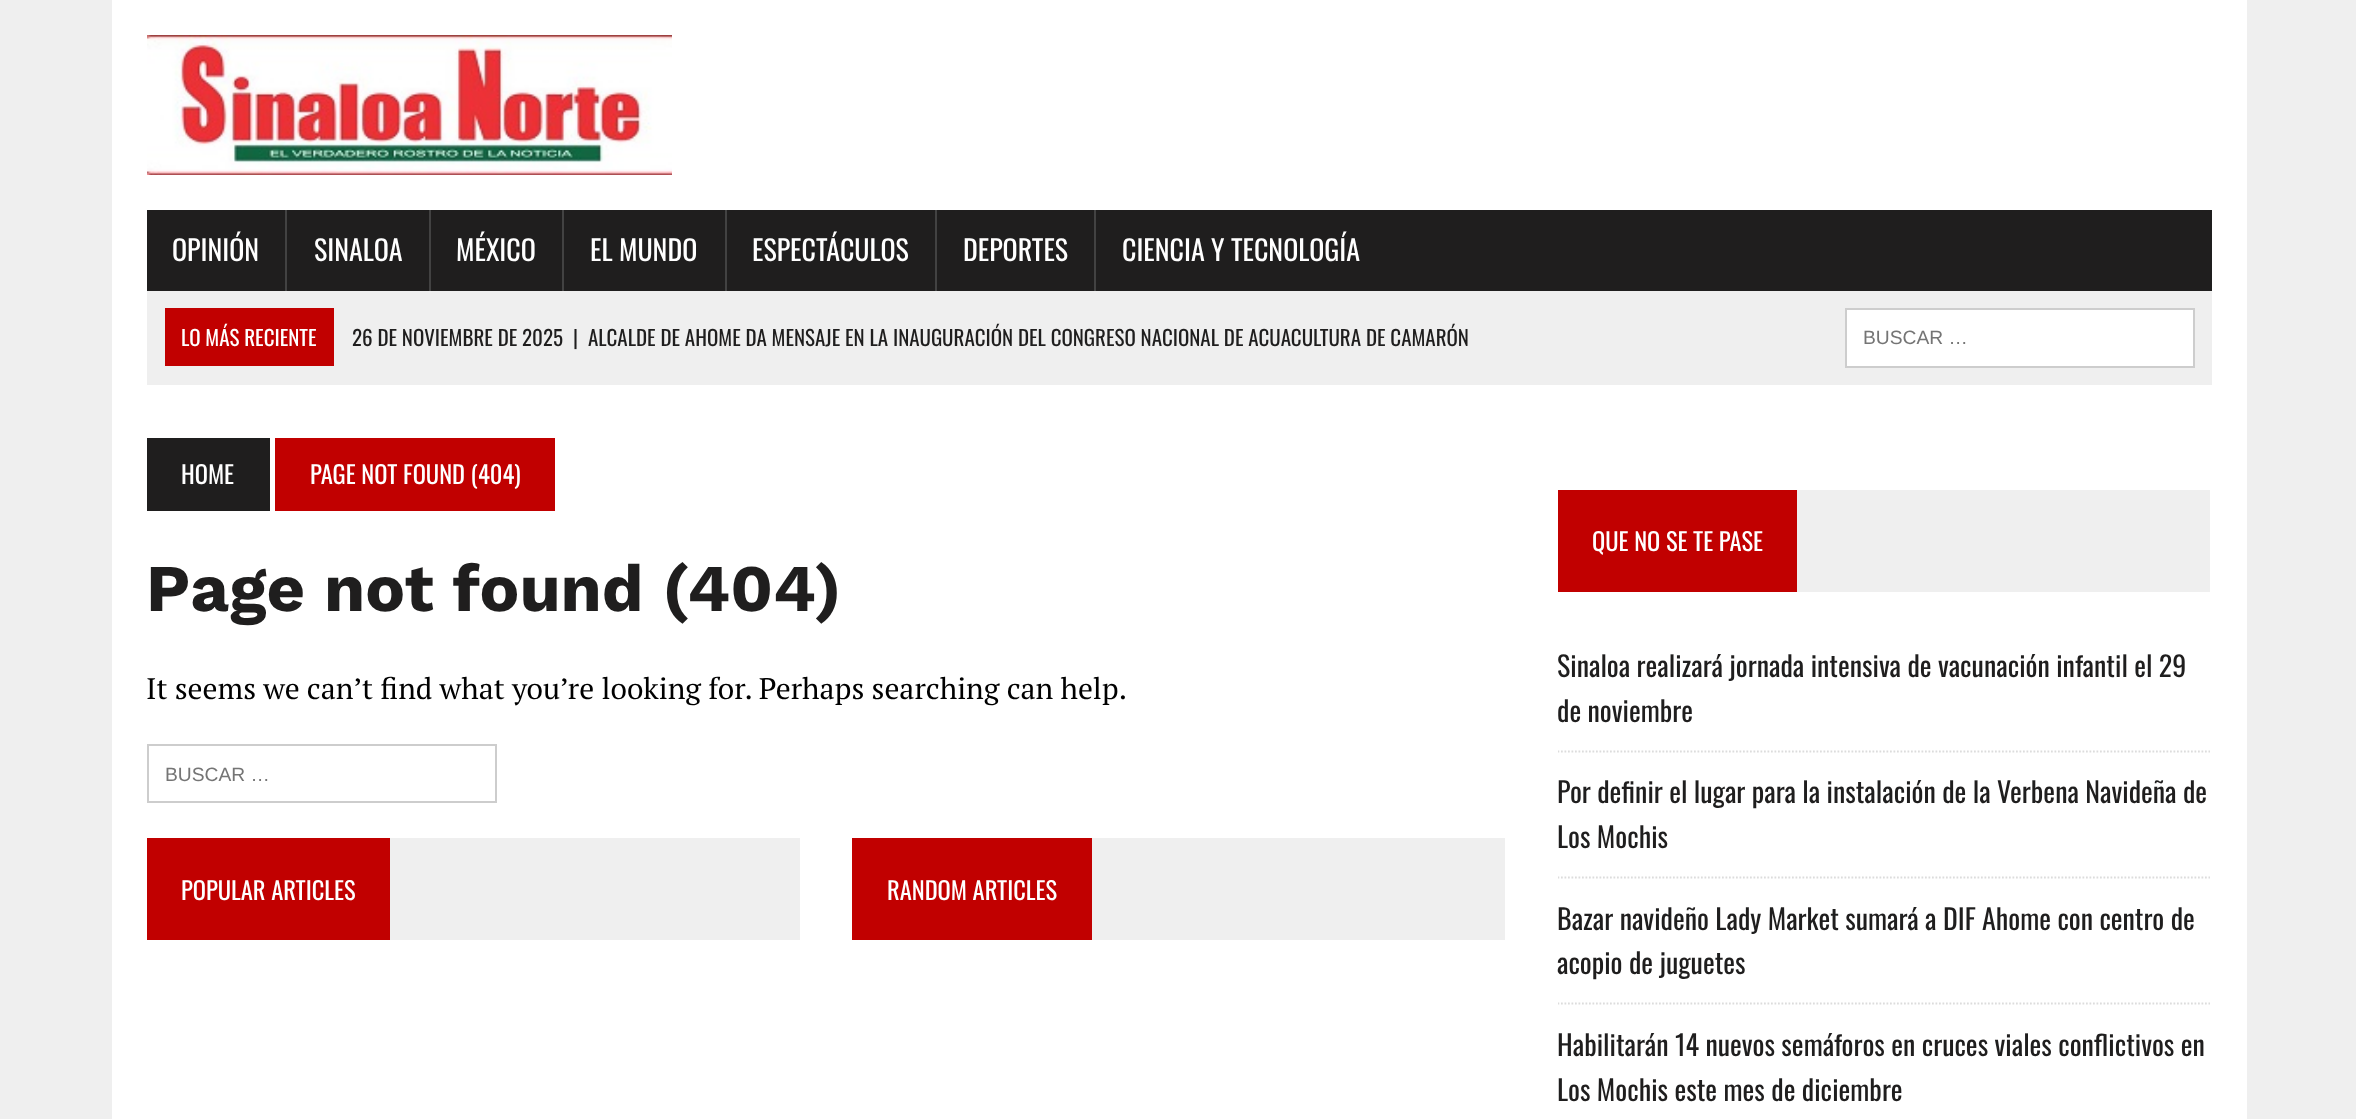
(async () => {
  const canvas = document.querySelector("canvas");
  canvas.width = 2356;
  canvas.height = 1119;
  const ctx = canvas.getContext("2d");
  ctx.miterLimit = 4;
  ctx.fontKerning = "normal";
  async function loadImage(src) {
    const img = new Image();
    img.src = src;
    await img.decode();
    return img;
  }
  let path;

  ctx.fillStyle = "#efefef";
  ctx.fillRect(0, 0, 2356, 1119);
  ctx.fillStyle = "#ffffff";
  ctx.fillRect(112, 0, 2135, 1119);
  ctx.drawImage(await loadImage("img/1.png"), 147, 35, 525, 140);
  for (const [x, y, w, h, color] of [
    [147, 210, 2065, 81, "#1f1e1e"],
    [285, 210, 2, 81, "#424242"],
    [429, 210, 2, 81, "#424242"],
    [562, 210, 2, 81, "#424242"],
    [725, 210, 2, 81, "#424242"],
    [935, 210, 2, 81, "#424242"],
    [1094, 210, 2, 81, "#424242"],
    [147, 291, 2065, 94, "#efefef"],
    [165, 308, 169, 58, "#c10000"],
  ]) {
    ctx.fillStyle = color;
    ctx.fillRect(x, y, w, h);
  }
  ctx.fillStyle = "#ffffff";
  ctx.beginPath();
  ctx.rect(1846, 309, 348, 58);
  ctx.fill();
  ctx.strokeStyle = "#cdcdcd";
  ctx.lineWidth = 2;
  ctx.stroke();
  ctx.fillStyle = "#1f1e1e";
  ctx.fillRect(147, 438, 123, 73);
  ctx.fillStyle = "#c10000";
  ctx.fillRect(275, 438, 280, 73);
  ctx.strokeRect(148, 745, 348, 57);
  for (const [x, y, w, h, color] of [
    [390, 838, 410, 102, "#efefef"],
    [147, 838, 243, 102, "#c10000"],
    [1092, 838, 413, 102, "#efefef"],
    [852, 838, 240, 102, "#c10000"],
    [1797, 490, 413, 102, "#efefef"],
    [1558, 490, 239, 102, "#c10000"],
  ]) {
    ctx.fillStyle = color;
    ctx.fillRect(x, y, w, h);
  }
  ctx.save();
  ctx.beginPath();
  ctx.rect(1558, 490, 652, 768);
  ctx.clip();
  path = new Path2D("M1557.5 751.5H2210");
  ctx.strokeStyle = "#dcdcdc";
  ctx.lineWidth = 1.8;
  ctx.setLineDash([1.75, 1.75]);
  ctx.stroke(path);
  path = new Path2D("M1557.5 877.5H2210");
  ctx.stroke(path);
  path = new Path2D("M1557.5 1003.5H2210");
  ctx.stroke(path);
  ctx.restore();
  ctx.font = "28px Oswald";
  ctx.fillStyle = "#ffffff";
  for (const [text, x, y] of [
    ["OPINIÓN", 172, 261],
    ["SINALOA", 314, 261],
    ["MÉXICO", 456, 261],
    ["EL MUNDO", 590, 261],
    ["ESPECTÁCULOS", 752, 261],
    ["DEPORTES", 963, 261],
    ["CIENCIA Y TECNOLOGÍA", 1122, 261],
  ]) {
    ctx.fillText(text, x, y);
  }
  ctx.font = "21px Oswald";
  ctx.fillText("LO MÁS RECIENTE", 181, 346);
  ctx.fillStyle = "#1f1e1e";
  for (const [text, x, y] of [
    ["26 DE NOVIEMBRE DE 2025", 352, 346],
    ["|", 573, 346],
    ["ALCALDE DE AHOME DA MENSAJE EN LA INAUGURACIÓN DEL CONGRESO NACIONAL DE ACUACULTURA DE CAMARÓN", 588, 346],
  ]) {
    ctx.fillText(text, x, y);
  }
  ctx.font = "19.25px Liberation Sans";
  ctx.fillStyle = "#757575";
  ctx.fillText("BUSCAR …", 1863, 344);
  ctx.font = "24.5px Oswald";
  ctx.fillStyle = "#ffffff";
  ctx.fillText("HOME", 181, 484);
  ctx.fillText("PAGE NOT FOUND (404)", 310, 484);
  ctx.font = "bold 66.5px Work Sans";
  ctx.fillStyle = "#1f1e1e";
  ctx.fillText("Page not found (404)", 146, 611);
  ctx.font = "29.75px PT Serif";
  ctx.fillStyle = "#000000";
  ctx.fillText("It seems we can’t find what you’re looking for. Perhaps searching can help.", 146, 699);
  ctx.font = "19.25px Liberation Sans";
  ctx.fillStyle = "#757575";
  ctx.fillText("BUSCAR …", 165, 781);
  ctx.font = "24.5px Oswald";
  ctx.fillStyle = "#ffffff";
  for (const [text, x, y] of [
    ["POPULAR ARTICLES", 181, 900],
    ["RANDOM ARTICLES", 887, 900],
    ["QUE NO SE TE PASE", 1592, 551],
  ]) {
    ctx.fillText(text, x, y);
  }
  ctx.font = "28px Oswald";
  ctx.fillStyle = "#1f1e1e";
  for (const [text, x, y] of [
    ["Sinaloa realizará jornada intensiva de vacunación infantil el 29", 1557, 677],
    ["de noviembre", 1557, 722],
    ["Por definir el lugar para la instalación de la Verbena Navideña de", 1557, 803],
    ["Los Mochis", 1557, 848],
    ["Bazar navideño Lady Market sumará a DIF Ahome con centro de", 1557, 930],
    ["acopio de juguetes", 1557, 974],
    ["Habilitarán 14 nuevos semáforos en cruces viales conflictivos en", 1557, 1056],
    ["Los Mochis este mes de diciembre", 1557, 1101],
  ]) {
    ctx.fillText(text, x, y);
  }
})();
